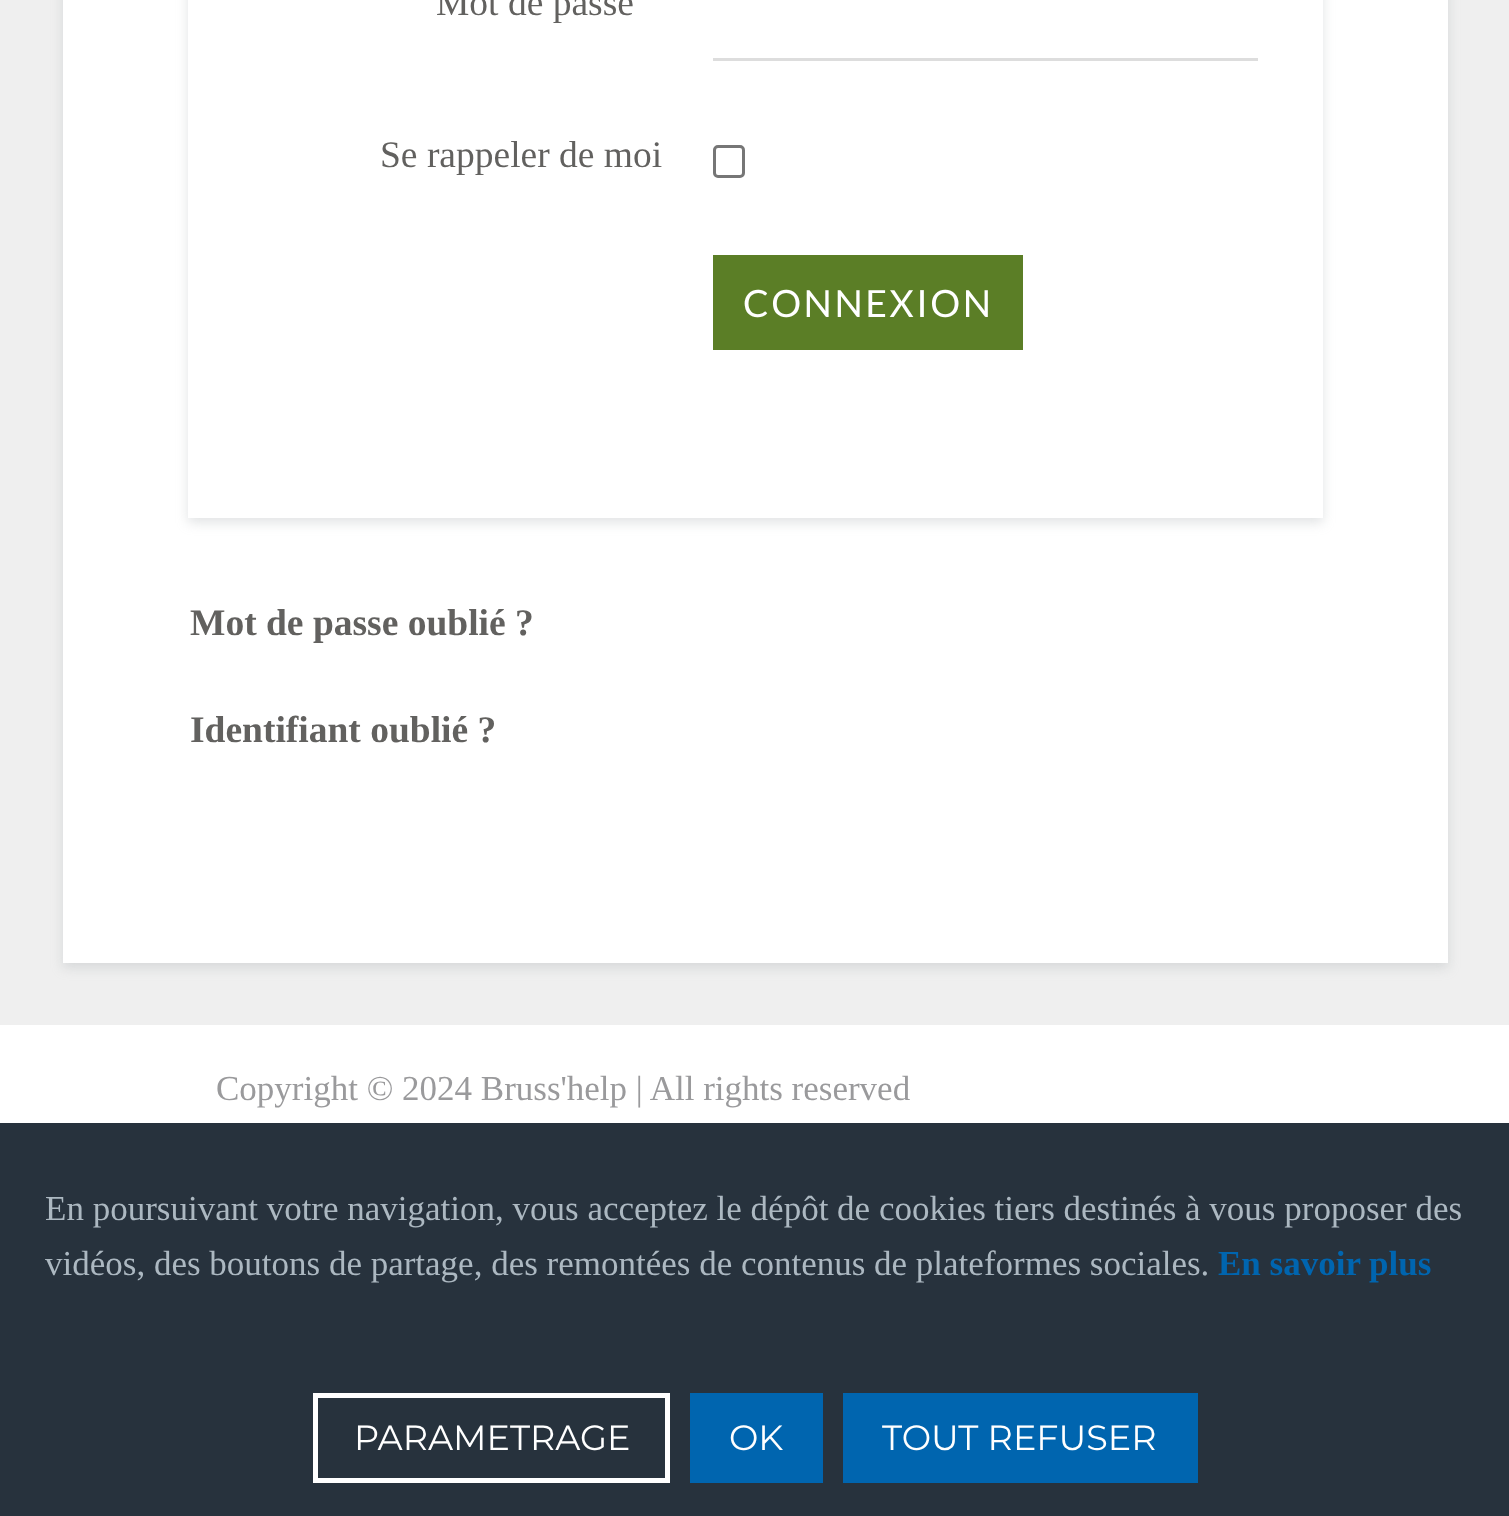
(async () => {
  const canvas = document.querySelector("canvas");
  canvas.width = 1509;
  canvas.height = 1516;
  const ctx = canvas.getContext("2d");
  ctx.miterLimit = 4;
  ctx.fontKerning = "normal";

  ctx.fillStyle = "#efefef";
  ctx.fillRect(0, 0, 1509, 1516);
  ctx.fillStyle = "rgba(160, 167, 169, 0.3)";
  ctx.filter = "blur(6px)";
  ctx.beginPath();
  ctx.rect(63, -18, 1385, 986);
  ctx.fill();
  ctx.filter = "none";
  ctx.fillStyle = "#ffffff";
  ctx.fillRect(63, 0, 1385, 963);
  ctx.fillStyle = "rgba(160, 167, 169, 0.3)";
  ctx.filter = "blur(6px)";
  ctx.beginPath();
  ctx.rect(188, -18, 1135, 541);
  ctx.fill();
  ctx.filter = "none";
  ctx.fillStyle = "#ffffff";
  ctx.fillRect(188, 0, 1135, 518);
  ctx.fillStyle = "#dddddd";
  ctx.fillRect(713, 58, 545, 3);
  ctx.beginPath();
  ctx.roundRect(714.5, 146.5, 29, 30, 3.5);
  ctx.strokeStyle = "#767676";
  ctx.lineWidth = 3;
  ctx.stroke();
  for (const [x, y, w, h, color] of [
    [713, 255, 310, 95, "#5b7e26"],
    [0, 1025, 1509, 98, "#ffffff"],
    [0, 1123, 1509, 393, "#27323d"],
  ]) {
    ctx.fillStyle = color;
    ctx.fillRect(x, y, w, h);
  }
  ctx.strokeStyle = "#ffffff";
  ctx.lineWidth = 5;
  ctx.strokeRect(315.5, 1395.5, 352, 85);
  ctx.fillStyle = "#0065af";
  ctx.fillRect(690, 1393, 133, 90);
  ctx.fillRect(843, 1393, 355, 90);
  ctx.font = "37.5px Liberation Serif";
  ctx.fillStyle = "#62615f";
  ctx.fillText("Mot de passe", 436, 15);
  ctx.fillText("Se rappeler de moi", 380, 167);
  ctx.letterSpacing = "2.5px";
  ctx.font = "37.5px Lato";
  ctx.fillStyle = "#ffffff";
  ctx.fillText("CONNEXION", 743, 317);
  ctx.letterSpacing = "0px";
  ctx.font = "bold 37.5px Liberation Serif";
  ctx.fillStyle = "#62615f";
  ctx.fillText("Mot de passe oublié ?", 190, 635);
  ctx.fillText("Identifiant oublié ?", 190, 742);
  ctx.font = "35px Liberation Serif";
  ctx.fillStyle = "#9a9a9c";
  ctx.fillText("Copyright © 2024 Bruss'help | All rights reserved", 216, 1100);
  ctx.fillStyle = "#acb8c1";
  ctx.fillText("En poursuivant votre navigation, vous acceptez le dépôt de cookies tiers destinés à vous proposer des", 45, 1220);
  ctx.fillText("vidéos, des boutons de partage, des remontées de contenus de plateformes sociales.", 45, 1275);
  ctx.font = "bold 35px Liberation Serif";
  ctx.fillStyle = "#0065af";
  ctx.fillText("En savoir plus", 1218, 1275);
  ctx.font = "35px Montserrat";
  ctx.fillStyle = "#ffffff";
  for (const [text, x, y] of [
    ["PARAMETRAGE", 354, 1450],
    ["OK", 729, 1450],
    ["TOUT REFUSER", 882, 1450],
  ]) {
    ctx.fillText(text, x, y);
  }
})();
